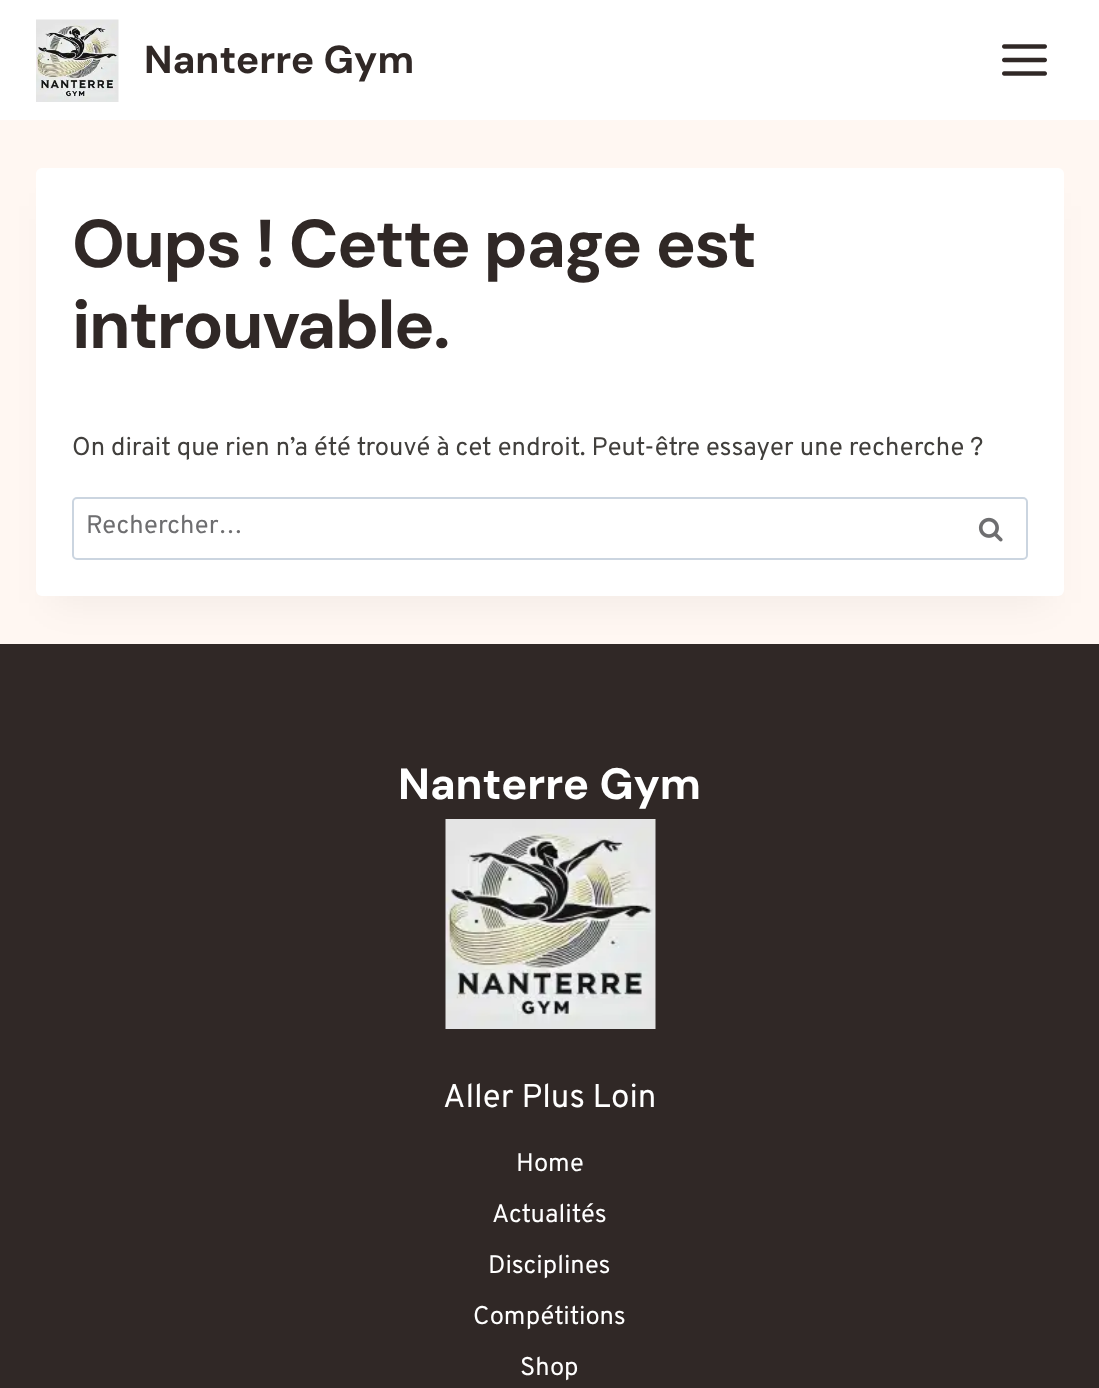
(async () => {
  const canvas = document.querySelector("canvas");
  canvas.width = 1099;
  canvas.height = 1388;
  const ctx = canvas.getContext("2d");
  ctx.miterLimit = 4;
  ctx.fontKerning = "normal";
  async function loadImage(src) {
    const img = new Image();
    img.src = src;
    await img.decode();
    return img;
  }

  ctx.fillStyle = "#fff7f2";
  ctx.fillRect(0, 0, 1099, 1388);
  ctx.fillStyle = "#ffffff";
  ctx.fillRect(0, 0, 1099, 120);
  ctx.drawImage(await loadImage("img/1.png"), 36, 19, 83, 83);
  ctx.drawImage(await loadImage("img/2.png"), 1002, 44, 45, 32);
  ctx.fillStyle = "#302826";
  ctx.fillRect(0, 644, 1099, 744);
  ctx.fillStyle = "rgba(0, 0, 0, 0.05)";
  ctx.filter = "blur(19px)";
  ctx.beginPath();
  ctx.rect(51, 206, 998, 397);
  ctx.fill();
  ctx.filter = "none";
  ctx.fillStyle = "#ffffff";
  ctx.beginPath();
  ctx.roundRect(36, 168, 1028, 428, 6);
  ctx.fill();
  ctx.beginPath();
  ctx.roundRect(73, 498, 954, 61, 4);
  ctx.strokeStyle = "#cbd5e0";
  ctx.lineWidth = 2;
  ctx.stroke();
  ctx.drawImage(await loadImage("img/3.png"), 978, 517, 25, 25);
  ctx.drawImage(await loadImage("img/4.png"), 445, 819, 211, 210);
  ctx.font = "bold 39px DM Sans";
  ctx.fillStyle = "#302826";
  ctx.fillText("Nanterre Gym", 144, 73);
  ctx.letterSpacing = "-1.5px";
  ctx.font = "bold 67.5px DM Sans";
  ctx.fillText("Oups ! Cette page est", 72, 267);
  ctx.fillText("introuvable.", 72, 348);
  ctx.letterSpacing = "0px";
  ctx.font = "25.5px Overpass";
  ctx.fillStyle = "#413f3c";
  ctx.fillText("On dirait que rien n’a été trouvé à cet endroit. Peut-être essayer une recherche ?", 72, 455);
  ctx.fillStyle = "#6e6e70";
  ctx.fillText("Rechercher…", 86, 533);
  ctx.font = "bold 43.75px DM Sans";
  ctx.fillStyle = "#ffffff";
  ctx.fillText("Nanterre Gym", 398, 799);
  ctx.font = "33px Overpass";
  ctx.fillText("Aller Plus Loin", 443, 1107);
  ctx.font = "25.5px Overpass";
  for (const [text, x, y] of [
    ["Home", 516, 1171],
    ["Actualités", 492, 1222],
    ["Disciplines", 488, 1273],
    ["Compétitions", 473, 1324],
    ["Shop", 520, 1375],
  ]) {
    ctx.fillText(text, x, y);
  }
})();
